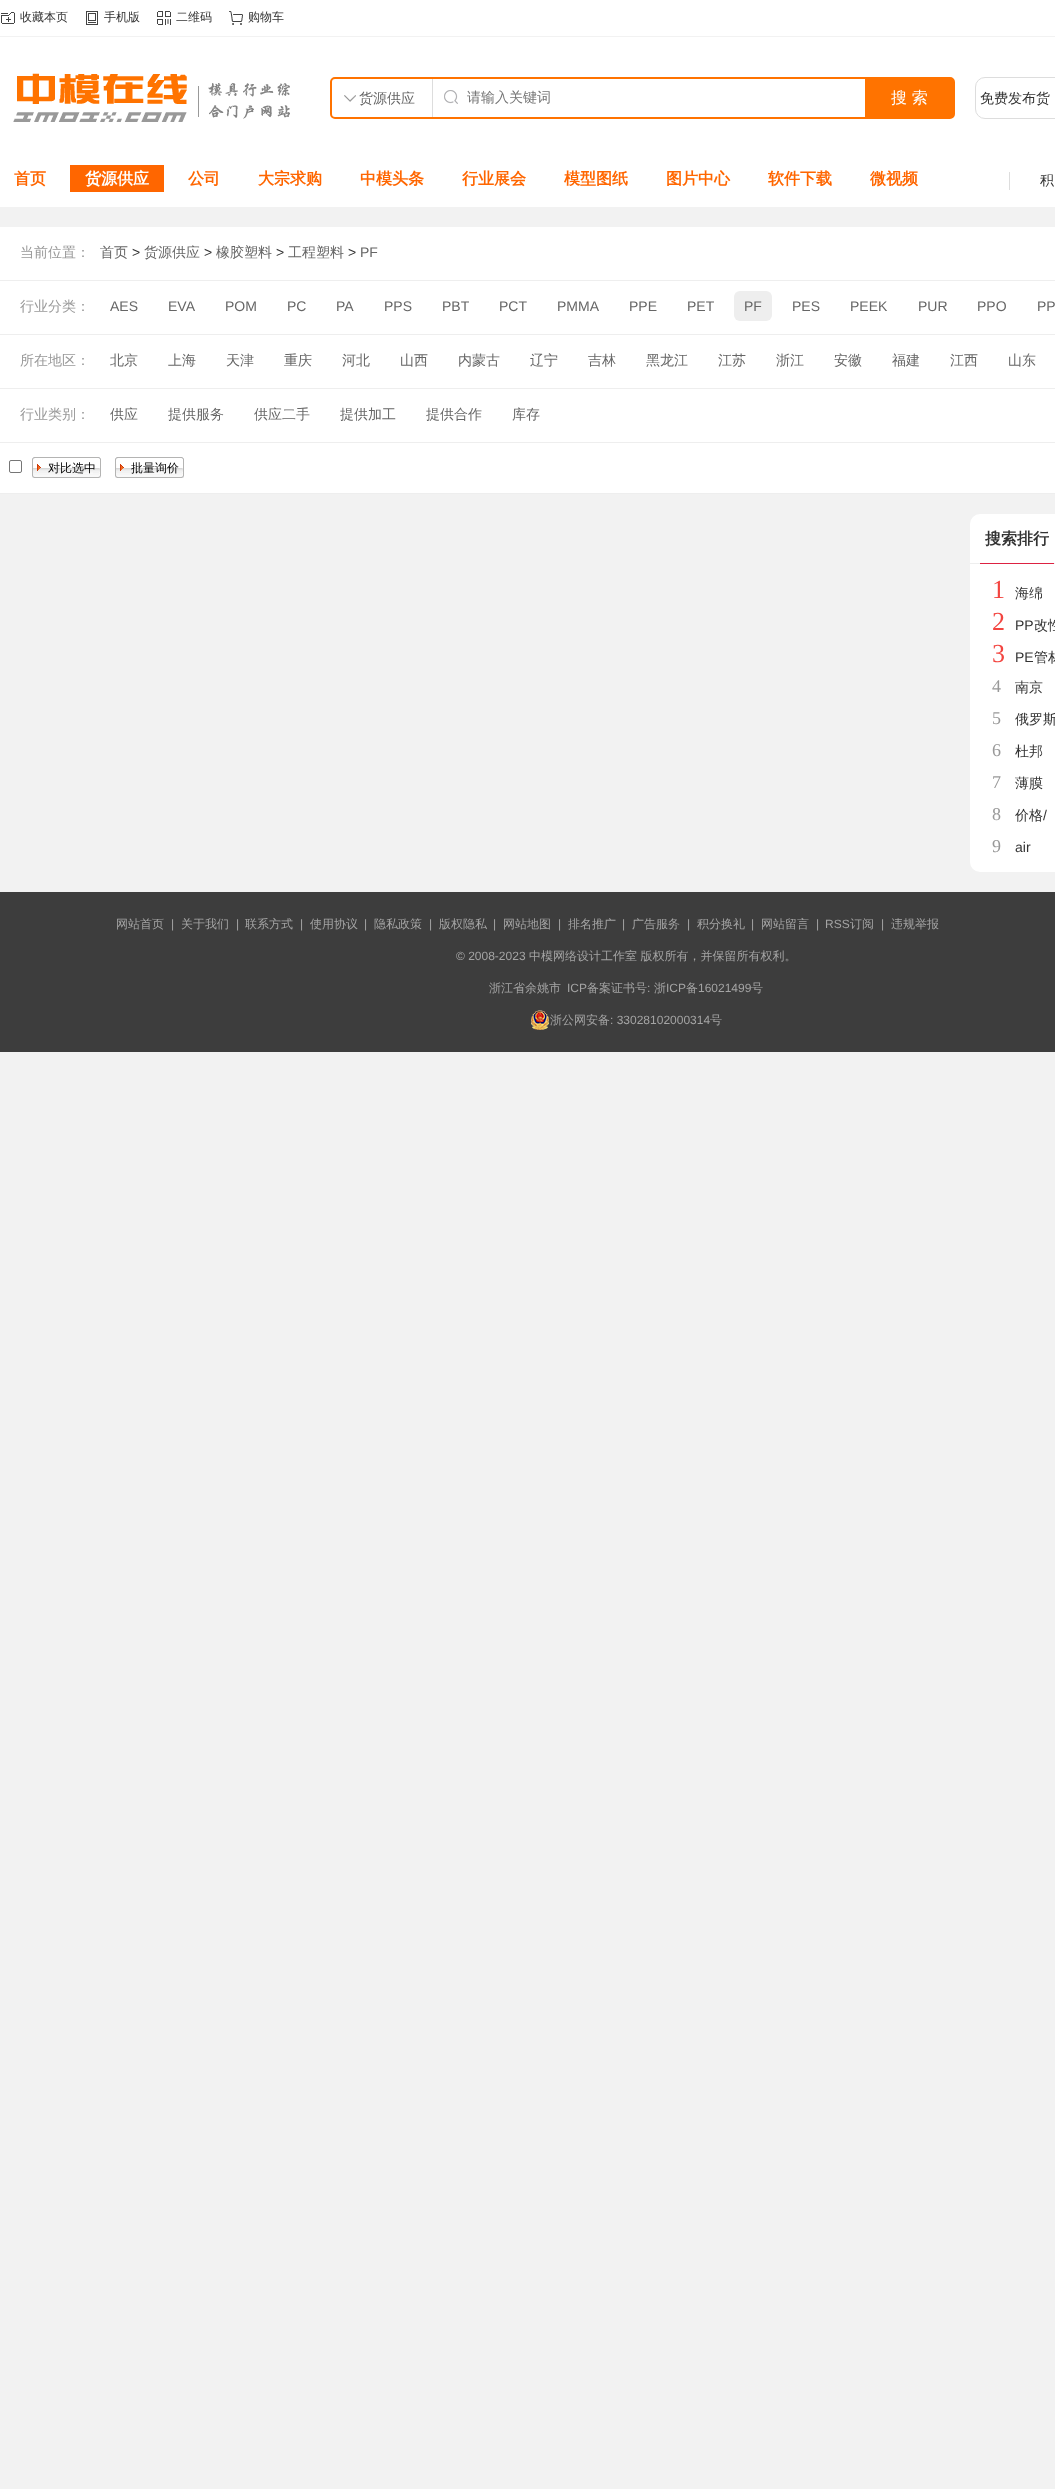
(async () => {
  const canvas = document.querySelector("canvas");
  canvas.width = 1055;
  canvas.height = 2489;
  const ctx = canvas.getContext("2d");
  ctx.miterLimit = 4;
  ctx.fontKerning = "normal";
  async function loadImage(src) {
    const img = new Image();
    img.src = src;
    await img.decode();
    return img;
  }

  ctx.fillStyle = "#f2f2f2";
  ctx.fillRect(0, 0, 1055, 2489);
  ctx.fillStyle = "#ffffff";
  ctx.fillRect(0, 0, 1055, 36);
  ctx.drawImage(await loadImage("img/1.png"), 1, 12, 14, 12);
  ctx.drawImage(await loadImage("img/2.png"), 86, 11, 12, 14);
  ctx.drawImage(await loadImage("img/3.png"), 157, 11, 14, 14);
  ctx.drawImage(await loadImage("img/4.png"), 229, 11, 14, 14);
  ctx.fillRect(0, 37, 1055, 170);
  ctx.drawImage(await loadImage("img/5.png"), 13, 73, 277, 49);
  ctx.beginPath();
  ctx.roundRect(331, 78, 623, 40, 4);
  ctx.strokeStyle = "#ff7300";
  ctx.lineWidth = 2;
  ctx.stroke();
  ctx.fillStyle = "#dddddd";
  ctx.fillRect(432, 79, 1, 38);
  ctx.drawImage(await loadImage("img/6.png"), 344, 95, 12, 7);
  ctx.drawImage(await loadImage("img/7.png"), 444, 90, 14, 14);
  ctx.fillStyle = "#ff7300";
  ctx.fillRect(865, 79, 88, 38);
  ctx.beginPath();
  ctx.roundRect(975.5, 77.5, 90, 41, 9.5);
  ctx.strokeStyle = "#dddddd";
  ctx.lineWidth = 1;
  ctx.stroke();
  for (const [x, y, w, h, color] of [
    [70, 165, 94, 27, "#ff6600"],
    [1009, 172, 1, 18, "#dddddd"],
    [0, 227, 1055, 53, "#ffffff"],
    [0, 280, 1055, 1, "#eeeeee"],
    [0, 281, 1055, 53, "#ffffff"],
    [0, 334, 1055, 1, "#eeeeee"],
  ]) {
    ctx.fillStyle = color;
    ctx.fillRect(x, y, w, h);
  }
  ctx.beginPath();
  ctx.roundRect(734, 291, 38, 30, 6);
  ctx.fill();
  for (const [x, y, w, h, color] of [
    [0, 335, 1055, 53, "#ffffff"],
    [0, 388, 1055, 1, "#eeeeee"],
    [0, 389, 1055, 53, "#ffffff"],
    [0, 442, 1055, 1, "#eeeeee"],
    [0, 443, 1055, 50, "#ffffff"],
    [0, 493, 1055, 1, "#eeeeee"],
  ]) {
    ctx.fillStyle = color;
    ctx.fillRect(x, y, w, h);
  }
  ctx.beginPath();
  ctx.roundRect(9.5, 460.5, 12, 12, 1.5);
  ctx.strokeStyle = "#767676";
  ctx.stroke();
  ctx.drawImage(await loadImage("img/8.png"), 32, 457, 69, 21);
  ctx.drawImage(await loadImage("img/8.png"), 115, 457, 69, 21);
  ctx.fillStyle = "#ffffff";
  ctx.beginPath();
  ctx.roundRect(970, 514, 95, 358, 10);
  ctx.fill();
  for (const [x, y, w, h, color] of [
    [970, 563, 85, 1, "#eeeeee"],
    [980, 563, 74, 1, "#dd2242"],
    [0, 892, 1055, 160, "#3d3d3d"],
  ]) {
    ctx.fillStyle = color;
    ctx.fillRect(x, y, w, h);
  }
  ctx.drawImage(await loadImage("img/9.png"), 531, 1010, 18, 20);
  ctx.font = "500 12px WenQuanYi Zen Hei";
  ctx.fillStyle = "#333333";
  for (const [text, x, y] of [
    ["收藏本页", 20, 21],
    ["手机版", 104, 21],
    ["二维码", 176, 21],
    ["购物车", 248, 21],
  ]) {
    ctx.fillText(text, x, y);
  }
  ctx.font = "500 14px WenQuanYi Zen Hei";
  ctx.fillStyle = "#666666";
  ctx.fillText("货源供应", 359, 103);
  ctx.fillStyle = "#757575";
  ctx.fillText("请输入关键词", 467, 102);
  ctx.font = "500 16px WenQuanYi Zen Hei";
  ctx.fillStyle = "#ffffff";
  ctx.fillText("搜 索", 891, 103);
  ctx.font = "500 14px WenQuanYi Zen Hei";
  ctx.fillStyle = "#333333";
  ctx.fillText("免费发布货", 980, 103);
  ctx.font = "bold 16px WenQuanYi Zen Hei";
  ctx.fillStyle = "#ff6600";
  ctx.fillText("首页", 14, 184);
  ctx.fillStyle = "#ffffff";
  ctx.fillText("货源供应", 85, 184);
  ctx.fillStyle = "#ff6600";
  for (const [text, x, y] of [
    ["公司", 188, 184],
    ["大宗求购", 258, 184],
    ["中模头条", 360, 184],
    ["行业展会", 462, 184],
    ["模型图纸", 564, 184],
    ["图片中心", 666, 184],
    ["软件下载", 768, 184],
    ["微视频", 870, 184],
  ]) {
    ctx.fillText(text, x, y);
  }
  ctx.font = "500 14px WenQuanYi Zen Hei";
  ctx.fillStyle = "#333333";
  ctx.fillText("积", 1040, 185);
  ctx.fillStyle = "#999999";
  ctx.fillText("当前位置：", 20, 257);
  ctx.fillStyle = "#666666";
  ctx.fillText("首页", 100, 257);
  ctx.font = "14px Liberation Sans";
  ctx.fillStyle = "#333333";
  ctx.fillText(">", 132, 257);
  ctx.font = "500 14px WenQuanYi Zen Hei";
  ctx.fillStyle = "#666666";
  ctx.fillText("货源供应", 144, 257);
  ctx.font = "14px Liberation Sans";
  ctx.fillStyle = "#333333";
  ctx.fillText(">", 204, 257);
  ctx.font = "500 14px WenQuanYi Zen Hei";
  ctx.fillStyle = "#666666";
  ctx.fillText("橡胶塑料", 216, 257);
  ctx.font = "14px Liberation Sans";
  ctx.fillStyle = "#333333";
  ctx.fillText(">", 276, 257);
  ctx.font = "500 14px WenQuanYi Zen Hei";
  ctx.fillStyle = "#666666";
  ctx.fillText("工程塑料", 288, 257);
  ctx.font = "14px Liberation Sans";
  ctx.fillStyle = "#333333";
  ctx.fillText(">", 348, 257);
  ctx.fillStyle = "#666666";
  ctx.fillText("PF", 360, 257);
  ctx.font = "500 14px WenQuanYi Zen Hei";
  ctx.fillStyle = "#999999";
  ctx.fillText("行业分类：", 20, 311);
  ctx.font = "14px Liberation Sans";
  ctx.fillStyle = "#666666";
  for (const [text, x, y] of [
    ["AES", 110, 311],
    ["EVA", 168, 311],
    ["POM", 225, 311],
    ["PC", 287, 311],
    ["PA", 336, 311],
    ["PPS", 384, 311],
    ["PBT", 442, 311],
    ["PCT", 499, 311],
    ["PMMA", 557, 311],
    ["PPE", 629, 311],
    ["PET", 687, 311],
    ["PF", 744, 311],
    ["PES", 792, 311],
    ["PEEK", 850, 311],
    ["PUR", 918, 311],
    ["PPO", 977, 311],
    ["PP", 1037, 311],
  ]) {
    ctx.fillText(text, x, y);
  }
  ctx.font = "500 14px WenQuanYi Zen Hei";
  ctx.fillStyle = "#999999";
  ctx.fillText("所在地区：", 20, 365);
  ctx.fillStyle = "#666666";
  for (const [text, x, y] of [
    ["北京", 110, 365],
    ["上海", 168, 365],
    ["天津", 226, 365],
    ["重庆", 284, 365],
    ["河北", 342, 365],
    ["山西", 400, 365],
    ["内蒙古", 458, 365],
    ["辽宁", 530, 365],
    ["吉林", 588, 365],
    ["黑龙江", 646, 365],
    ["江苏", 718, 365],
    ["浙江", 776, 365],
    ["安徽", 834, 365],
    ["福建", 892, 365],
    ["江西", 950, 365],
    ["山东", 1008, 365],
  ]) {
    ctx.fillText(text, x, y);
  }
  ctx.fillStyle = "#999999";
  ctx.fillText("行业类别：", 20, 419);
  ctx.fillStyle = "#666666";
  for (const [text, x, y] of [
    ["供应", 110, 419],
    ["提供服务", 168, 419],
    ["供应二手", 254, 419],
    ["提供加工", 340, 419],
    ["提供合作", 426, 419],
    ["库存", 512, 419],
  ]) {
    ctx.fillText(text, x, y);
  }
  ctx.font = "500 12px WenQuanYi Zen Hei";
  ctx.fillStyle = "#000000";
  ctx.fillText("对比选中", 48, 472);
  ctx.fillText("批量询价", 131, 472);
  ctx.font = "bold 16px WenQuanYi Zen Hei";
  ctx.fillStyle = "#333333";
  ctx.fillText("搜索排行", 985, 544);
  ctx.font = "26px Liberation Serif";
  ctx.fillStyle = "#f34540";
  ctx.fillText("1", 992, 598);
  ctx.font = "500 14px WenQuanYi Zen Hei";
  ctx.fillStyle = "#333333";
  ctx.fillText("海绵", 1015, 598);
  ctx.font = "26px Liberation Serif";
  ctx.fillStyle = "#f34540";
  ctx.fillText("2", 992, 630);
  ctx.font = "14px Liberation Sans";
  ctx.fillStyle = "#333333";
  ctx.fillText("PP", 1015, 630);
  ctx.font = "500 14px WenQuanYi Zen Hei";
  ctx.fillText("改性", 1034, 630);
  ctx.font = "26px Liberation Serif";
  ctx.fillStyle = "#f34540";
  ctx.fillText("3", 992, 662);
  ctx.font = "14px Liberation Sans";
  ctx.fillStyle = "#333333";
  ctx.fillText("PE", 1015, 662);
  ctx.font = "500 14px WenQuanYi Zen Hei";
  ctx.fillText("管材", 1034, 662);
  ctx.font = "18px Liberation Serif";
  ctx.fillStyle = "#999999";
  ctx.fillText("4", 992, 692);
  ctx.font = "500 14px WenQuanYi Zen Hei";
  ctx.fillStyle = "#333333";
  ctx.fillText("南京", 1015, 692);
  ctx.font = "18px Liberation Serif";
  ctx.fillStyle = "#999999";
  ctx.fillText("5", 992, 724);
  ctx.font = "500 14px WenQuanYi Zen Hei";
  ctx.fillStyle = "#333333";
  ctx.fillText("俄罗斯", 1015, 724);
  ctx.font = "18px Liberation Serif";
  ctx.fillStyle = "#999999";
  ctx.fillText("6", 992, 756);
  ctx.font = "500 14px WenQuanYi Zen Hei";
  ctx.fillStyle = "#333333";
  ctx.fillText("杜邦", 1015, 756);
  ctx.font = "18px Liberation Serif";
  ctx.fillStyle = "#999999";
  ctx.fillText("7", 992, 788);
  ctx.font = "500 14px WenQuanYi Zen Hei";
  ctx.fillStyle = "#333333";
  ctx.fillText("薄膜", 1015, 788);
  ctx.font = "18px Liberation Serif";
  ctx.fillStyle = "#999999";
  ctx.fillText("8", 992, 820);
  ctx.font = "500 14px WenQuanYi Zen Hei";
  ctx.fillStyle = "#333333";
  ctx.fillText("价格", 1015, 820);
  ctx.font = "14px Liberation Sans";
  ctx.fillText("/", 1043, 820);
  ctx.font = "18px Liberation Serif";
  ctx.fillStyle = "#999999";
  ctx.fillText("9", 992, 852);
  ctx.font = "14px Liberation Sans";
  ctx.fillStyle = "#333333";
  ctx.fillText("air", 1015, 852);
  ctx.font = "500 12px WenQuanYi Zen Hei";
  ctx.fillStyle = "#a4a4a4";
  ctx.fillText("网站首页", 116, 928);
  ctx.font = "12px Liberation Sans";
  ctx.fillText("|", 171, 928);
  ctx.font = "500 12px WenQuanYi Zen Hei";
  ctx.fillText("关于我们", 181, 928);
  ctx.font = "12px Liberation Sans";
  ctx.fillText("|", 236, 928);
  ctx.font = "500 12px WenQuanYi Zen Hei";
  ctx.fillText("联系方式", 245, 928);
  ctx.font = "12px Liberation Sans";
  ctx.fillText("|", 300, 928);
  ctx.font = "500 12px WenQuanYi Zen Hei";
  ctx.fillText("使用协议", 310, 928);
  ctx.font = "12px Liberation Sans";
  ctx.fillText("|", 364, 928);
  ctx.font = "500 12px WenQuanYi Zen Hei";
  ctx.fillText("隐私政策", 374, 928);
  ctx.font = "12px Liberation Sans";
  ctx.fillText("|", 429, 928);
  ctx.font = "500 12px WenQuanYi Zen Hei";
  ctx.fillText("版权隐私", 439, 928);
  ctx.font = "12px Liberation Sans";
  ctx.fillText("|", 493, 928);
  ctx.font = "500 12px WenQuanYi Zen Hei";
  ctx.fillText("网站地图", 503, 928);
  ctx.font = "12px Liberation Sans";
  ctx.fillText("|", 558, 928);
  ctx.font = "500 12px WenQuanYi Zen Hei";
  ctx.fillText("排名推广", 568, 928);
  ctx.font = "12px Liberation Sans";
  ctx.fillText("|", 622, 928);
  ctx.font = "500 12px WenQuanYi Zen Hei";
  ctx.fillText("广告服务", 632, 928);
  ctx.font = "12px Liberation Sans";
  ctx.fillText("|", 687, 928);
  ctx.font = "500 12px WenQuanYi Zen Hei";
  ctx.fillText("积分换礼", 697, 928);
  ctx.font = "12px Liberation Sans";
  ctx.fillText("|", 751, 928);
  ctx.font = "500 12px WenQuanYi Zen Hei";
  ctx.fillText("网站留言", 761, 928);
  ctx.font = "12px Liberation Sans";
  ctx.fillText("|", 816, 928);
  ctx.fillText("RSS", 825, 928);
  ctx.font = "500 12px WenQuanYi Zen Hei";
  ctx.fillText("订阅", 850, 928);
  ctx.font = "12px Liberation Sans";
  ctx.fillText("|", 881, 928);
  ctx.font = "500 12px WenQuanYi Zen Hei";
  ctx.fillText("违规举报", 891, 928);
  ctx.font = "12px Liberation Sans";
  ctx.fillText("© 2008-2023", 456, 960);
  ctx.font = "500 12px WenQuanYi Zen Hei";
  ctx.fillText("中模网络设计工作室 版权所有，并保留所有权利。", 529, 960);
  ctx.fillText("浙江省余姚市", 489, 992);
  ctx.font = "12px Liberation Sans";
  ctx.fillText("ICP", 567, 992);
  ctx.font = "500 12px WenQuanYi Zen Hei";
  ctx.fillText("备案证书号", 587, 992);
  ctx.font = "12px Liberation Sans";
  ctx.fillText(":", 647, 992);
  ctx.font = "500 12px WenQuanYi Zen Hei";
  ctx.fillText("浙", 654, 992);
  ctx.font = "12px Liberation Sans";
  ctx.fillText("ICP", 666, 992);
  ctx.font = "500 12px WenQuanYi Zen Hei";
  ctx.fillText("备", 686, 992);
  ctx.font = "12px Liberation Sans";
  ctx.fillText("16021499", 698, 992);
  ctx.font = "500 12px WenQuanYi Zen Hei";
  ctx.fillText("号", 751, 992);
  ctx.fillText("浙公网安备", 550, 1024);
  ctx.font = "12px Liberation Sans";
  ctx.fillText(": 33028102000314", 610, 1024);
  ctx.font = "500 12px WenQuanYi Zen Hei";
  ctx.fillText("号", 710, 1024);
})();
